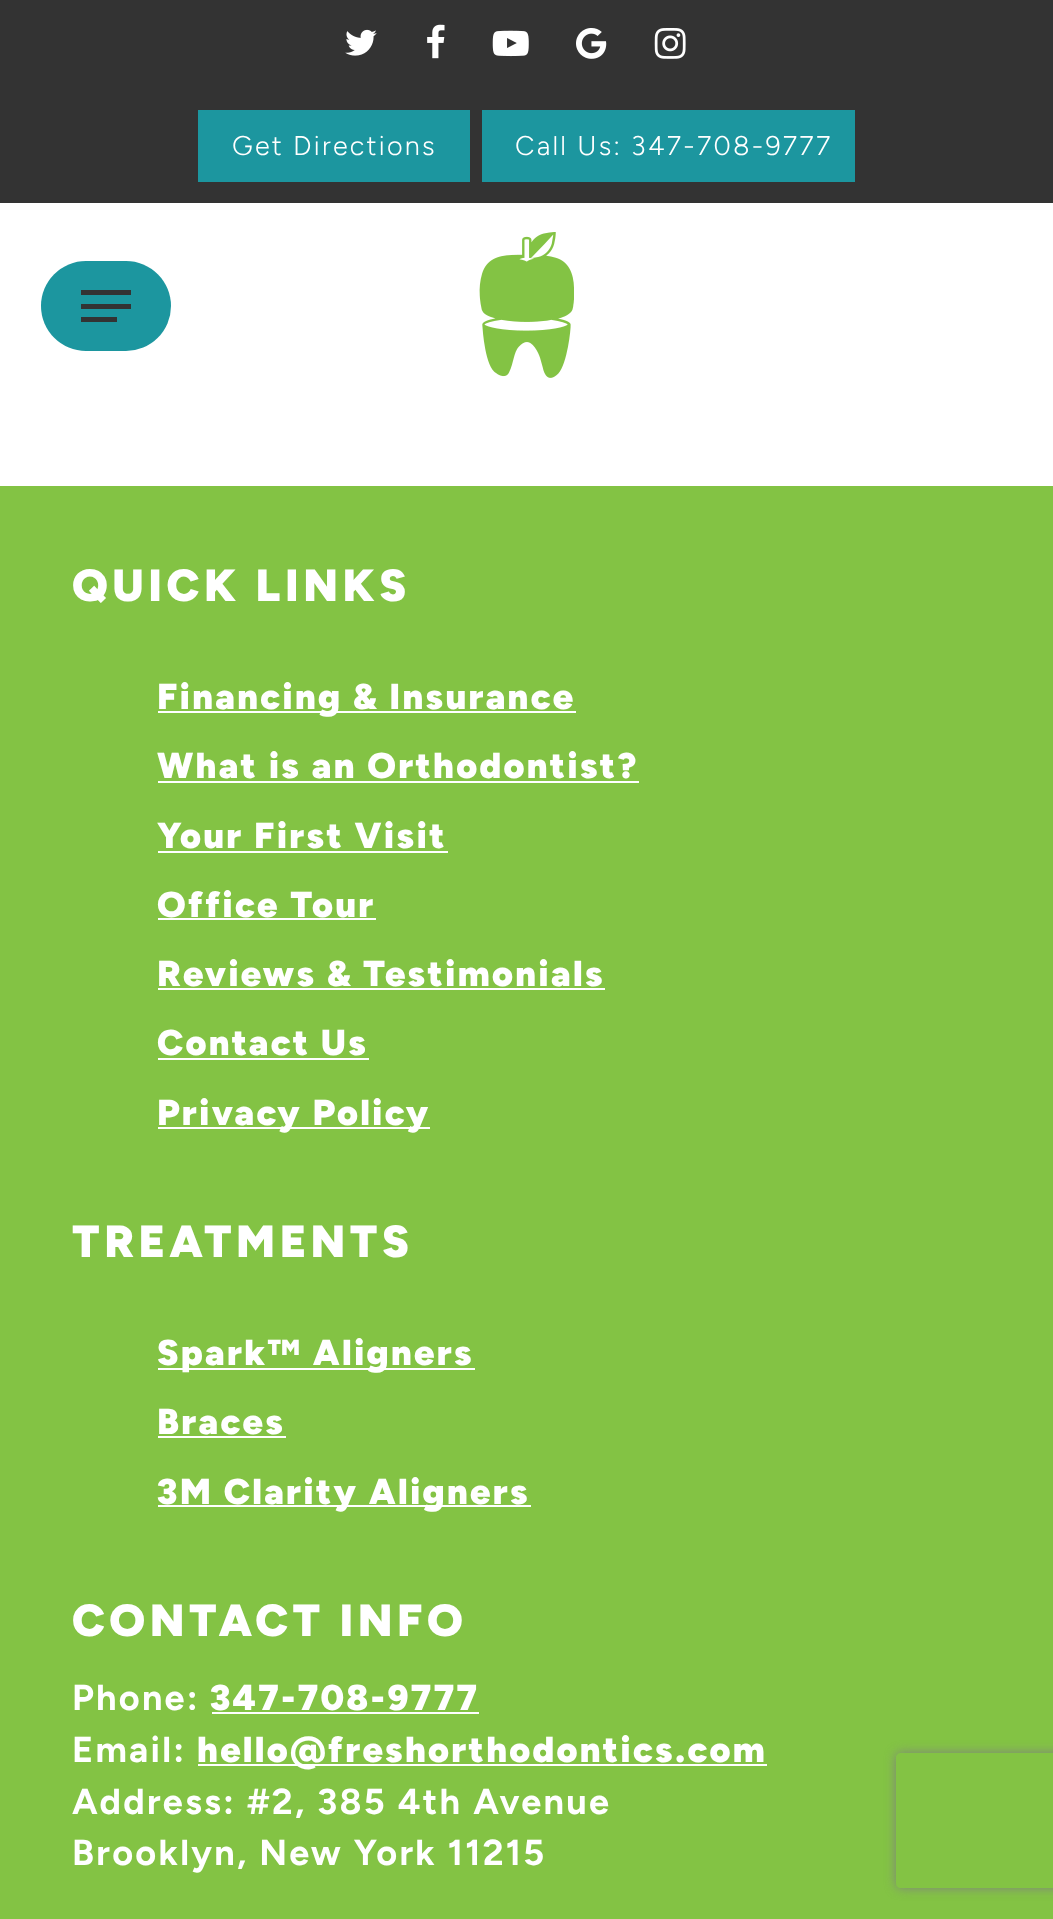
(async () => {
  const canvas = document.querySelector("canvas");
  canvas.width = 1053;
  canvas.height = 1919;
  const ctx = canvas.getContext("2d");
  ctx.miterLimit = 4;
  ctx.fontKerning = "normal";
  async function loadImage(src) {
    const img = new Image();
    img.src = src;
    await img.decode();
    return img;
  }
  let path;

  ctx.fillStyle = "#ffffff";
  ctx.fillRect(0, 0, 1053, 1919);
  ctx.fillStyle = "#333333";
  ctx.fillRect(0, 0, 1053, 203);
  ctx.drawImage(await loadImage("img/1.png"), 345, 29, 32, 27);
  ctx.drawImage(await loadImage("img/2.png"), 427, 24, 18, 35);
  ctx.drawImage(await loadImage("img/3.png"), 492, 30, 37, 27);
  ctx.drawImage(await loadImage("img/4.png"), 576, 28, 31, 31);
  ctx.drawImage(await loadImage("img/5.png"), 654, 28, 32, 31);
  ctx.fillStyle = "#1c969f";
  ctx.fillRect(198, 110, 272, 72);
  ctx.fillRect(482, 110, 373, 72);
  ctx.beginPath();
  ctx.roundRect(41, 261, 130, 90, 45);
  ctx.fill();
  for (const [x, y, w, h, color] of [
    [81, 290, 50, 5, "#333333"],
    [81, 317, 36, 5, "#333333"],
    [81, 304, 50, 5, "#333333"],
  ]) {
    ctx.fillStyle = color;
    ctx.fillRect(x, y, w, h);
  }
  ctx.drawImage(await loadImage("img/6.png"), 479, 232, 95, 146);
  for (const [x, y, w, h, color] of [
    [0, 486, 1053, 1433, "#83c344"],
    [158, 711, 418, 2, "#ffffff"],
    [158, 781, 481, 2, "#ffffff"],
    [158, 851, 290, 2, "#ffffff"],
    [158, 918, 218, 2, "#ffffff"],
    [158, 988, 447, 2, "#ffffff"],
    [158, 1058, 211, 2, "#ffffff"],
    [158, 1127, 272, 2, "#ffffff"],
    [158, 1368, 317, 2, "#ffffff"],
    [158, 1436, 128, 2, "#ffffff"],
    [158, 1505, 373, 2, "#ffffff"],
    [212, 1712, 267, 2, "#ffffff"],
    [198, 1764, 569, 2, "#ffffff"],
  ]) {
    ctx.fillStyle = color;
    ctx.fillRect(x, y, w, h);
  }
  ctx.save();
  path = new Path2D("M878 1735H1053V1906H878ZM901 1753H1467C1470 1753 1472 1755 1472 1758V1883C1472 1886 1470 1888 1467 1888H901C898 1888 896 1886 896 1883V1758C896 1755 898 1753 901 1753Z");
  ctx.clip(path, "evenodd");
  ctx.fillStyle = "#808080";
  ctx.filter = "blur(5.5px)";
  ctx.beginPath();
  ctx.roundRect(896, 1753, 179, 135, 5);
  ctx.fill();
  ctx.filter = "none";
  ctx.restore();
  ctx.letterSpacing = "2.25px";
  ctx.font = "300 27px Figtree";
  ctx.fillText("Get Directions", 232, 155);
  ctx.fillText("Call Us: 347-708-9777", 515, 155);
  ctx.letterSpacing = "4.5px";
  ctx.font = "900 45px Figtree";
  ctx.fillText("QUICK LINKS", 72, 601);
  ctx.letterSpacing = "2.25px";
  ctx.font = "900 36px Figtree";
  for (const [text, x, y] of [
    ["Financing & Insurance", 157, 709],
    ["What is an Orthodontist?", 157, 778],
    ["Your First Visit", 157, 848],
    ["Office Tour", 157, 917],
    ["Reviews & Testimonials", 157, 986],
    ["Contact Us", 157, 1055],
    ["Privacy Policy", 157, 1125],
  ]) {
    ctx.fillText(text, x, y);
  }
  ctx.letterSpacing = "4.5px";
  ctx.font = "900 45px Figtree";
  ctx.fillText("TREATMENTS", 72, 1257);
  ctx.letterSpacing = "2.25px";
  ctx.font = "900 36px Figtree";
  for (const [text, x, y] of [
    ["Spark™ Aligners", 157, 1365],
    ["Braces", 157, 1434],
    ["3M Clarity Aligners", 157, 1504],
  ]) {
    ctx.fillText(text, x, y);
  }
  ctx.letterSpacing = "4.5px";
  ctx.font = "900 45px Figtree";
  ctx.fillText("CONTACT INFO", 72, 1636);
  ctx.letterSpacing = "2.25px";
  ctx.font = "bold 36px Figtree";
  ctx.fillText("Phone:", 72, 1710);
  ctx.font = "900 36px Figtree";
  ctx.fillText("347-708-9777", 210, 1710);
  ctx.font = "bold 36px Figtree";
  ctx.fillText("Email:", 72, 1762);
  ctx.font = "900 36px Figtree";
  ctx.fillText("hello@freshorthodontics.com", 197, 1762);
  ctx.font = "bold 36px Figtree";
  ctx.fillText("Address: #2, 385 4th Avenue", 72, 1814);
  ctx.fillText("Brooklyn, New York 11215", 72, 1865);
})();
